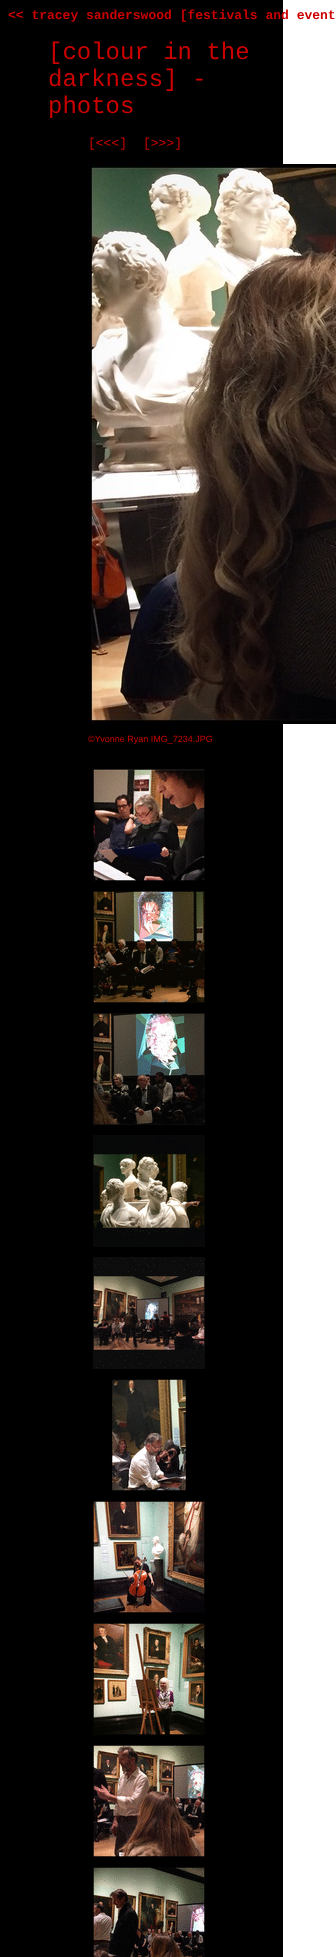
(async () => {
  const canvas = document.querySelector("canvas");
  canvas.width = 336;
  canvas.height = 1957;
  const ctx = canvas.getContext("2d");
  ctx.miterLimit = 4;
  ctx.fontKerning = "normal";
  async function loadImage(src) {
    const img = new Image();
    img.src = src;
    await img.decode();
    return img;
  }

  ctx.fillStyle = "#ffffff";
  ctx.fillRect(0, 0, 336, 1957);
  ctx.fillStyle = "#000000";
  ctx.fillRect(0, 0, 283, 1957);
  ctx.drawImage(await loadImage("img/1.png"), 88, 164, 248, 560);
  ctx.drawImage(await loadImage("img/2.png"), 93, 769, 112, 112);
  ctx.drawImage(await loadImage("img/3.png"), 93, 891, 112, 112);
  ctx.drawImage(await loadImage("img/4.png"), 93, 1013, 112, 112);
  ctx.drawImage(await loadImage("img/5.png"), 93, 1135, 112, 112);
  ctx.drawImage(await loadImage("img/6.png"), 93, 1257, 112, 112);
  ctx.drawImage(await loadImage("img/7.png"), 110, 1379, 78, 112);
  ctx.drawImage(await loadImage("img/8.png"), 93, 1501, 112, 112);
  ctx.drawImage(await loadImage("img/9.png"), 93, 1623, 112, 112);
  ctx.drawImage(await loadImage("img/10.png"), 93, 1745, 112, 112);
  ctx.drawImage(await loadImage("img/11.png"), 93, 1867, 112, 90);
  ctx.font = "bold 13px Liberation Mono";
  ctx.fillStyle = "#cc0000";
  ctx.fillText("<< tracey sanderswood [festivals and event", 8, 19);
  ctx.font = "24px Liberation Mono";
  for (const [text, x, y] of [
    ["[colour in the", 48, 59],
    ["darkness] -", 48, 86],
    ["photos", 48, 113],
  ]) {
    ctx.fillText(text, x, y);
  }
  ctx.font = "13px Liberation Mono";
  ctx.fillText("[<<<]", 88, 147);
  ctx.fillText("[>>>]", 143, 147);
  ctx.font = "9px Liberation Sans";
  ctx.fillText("©Yvonne Ryan IMG_7234.JPG", 88, 742);
})();
